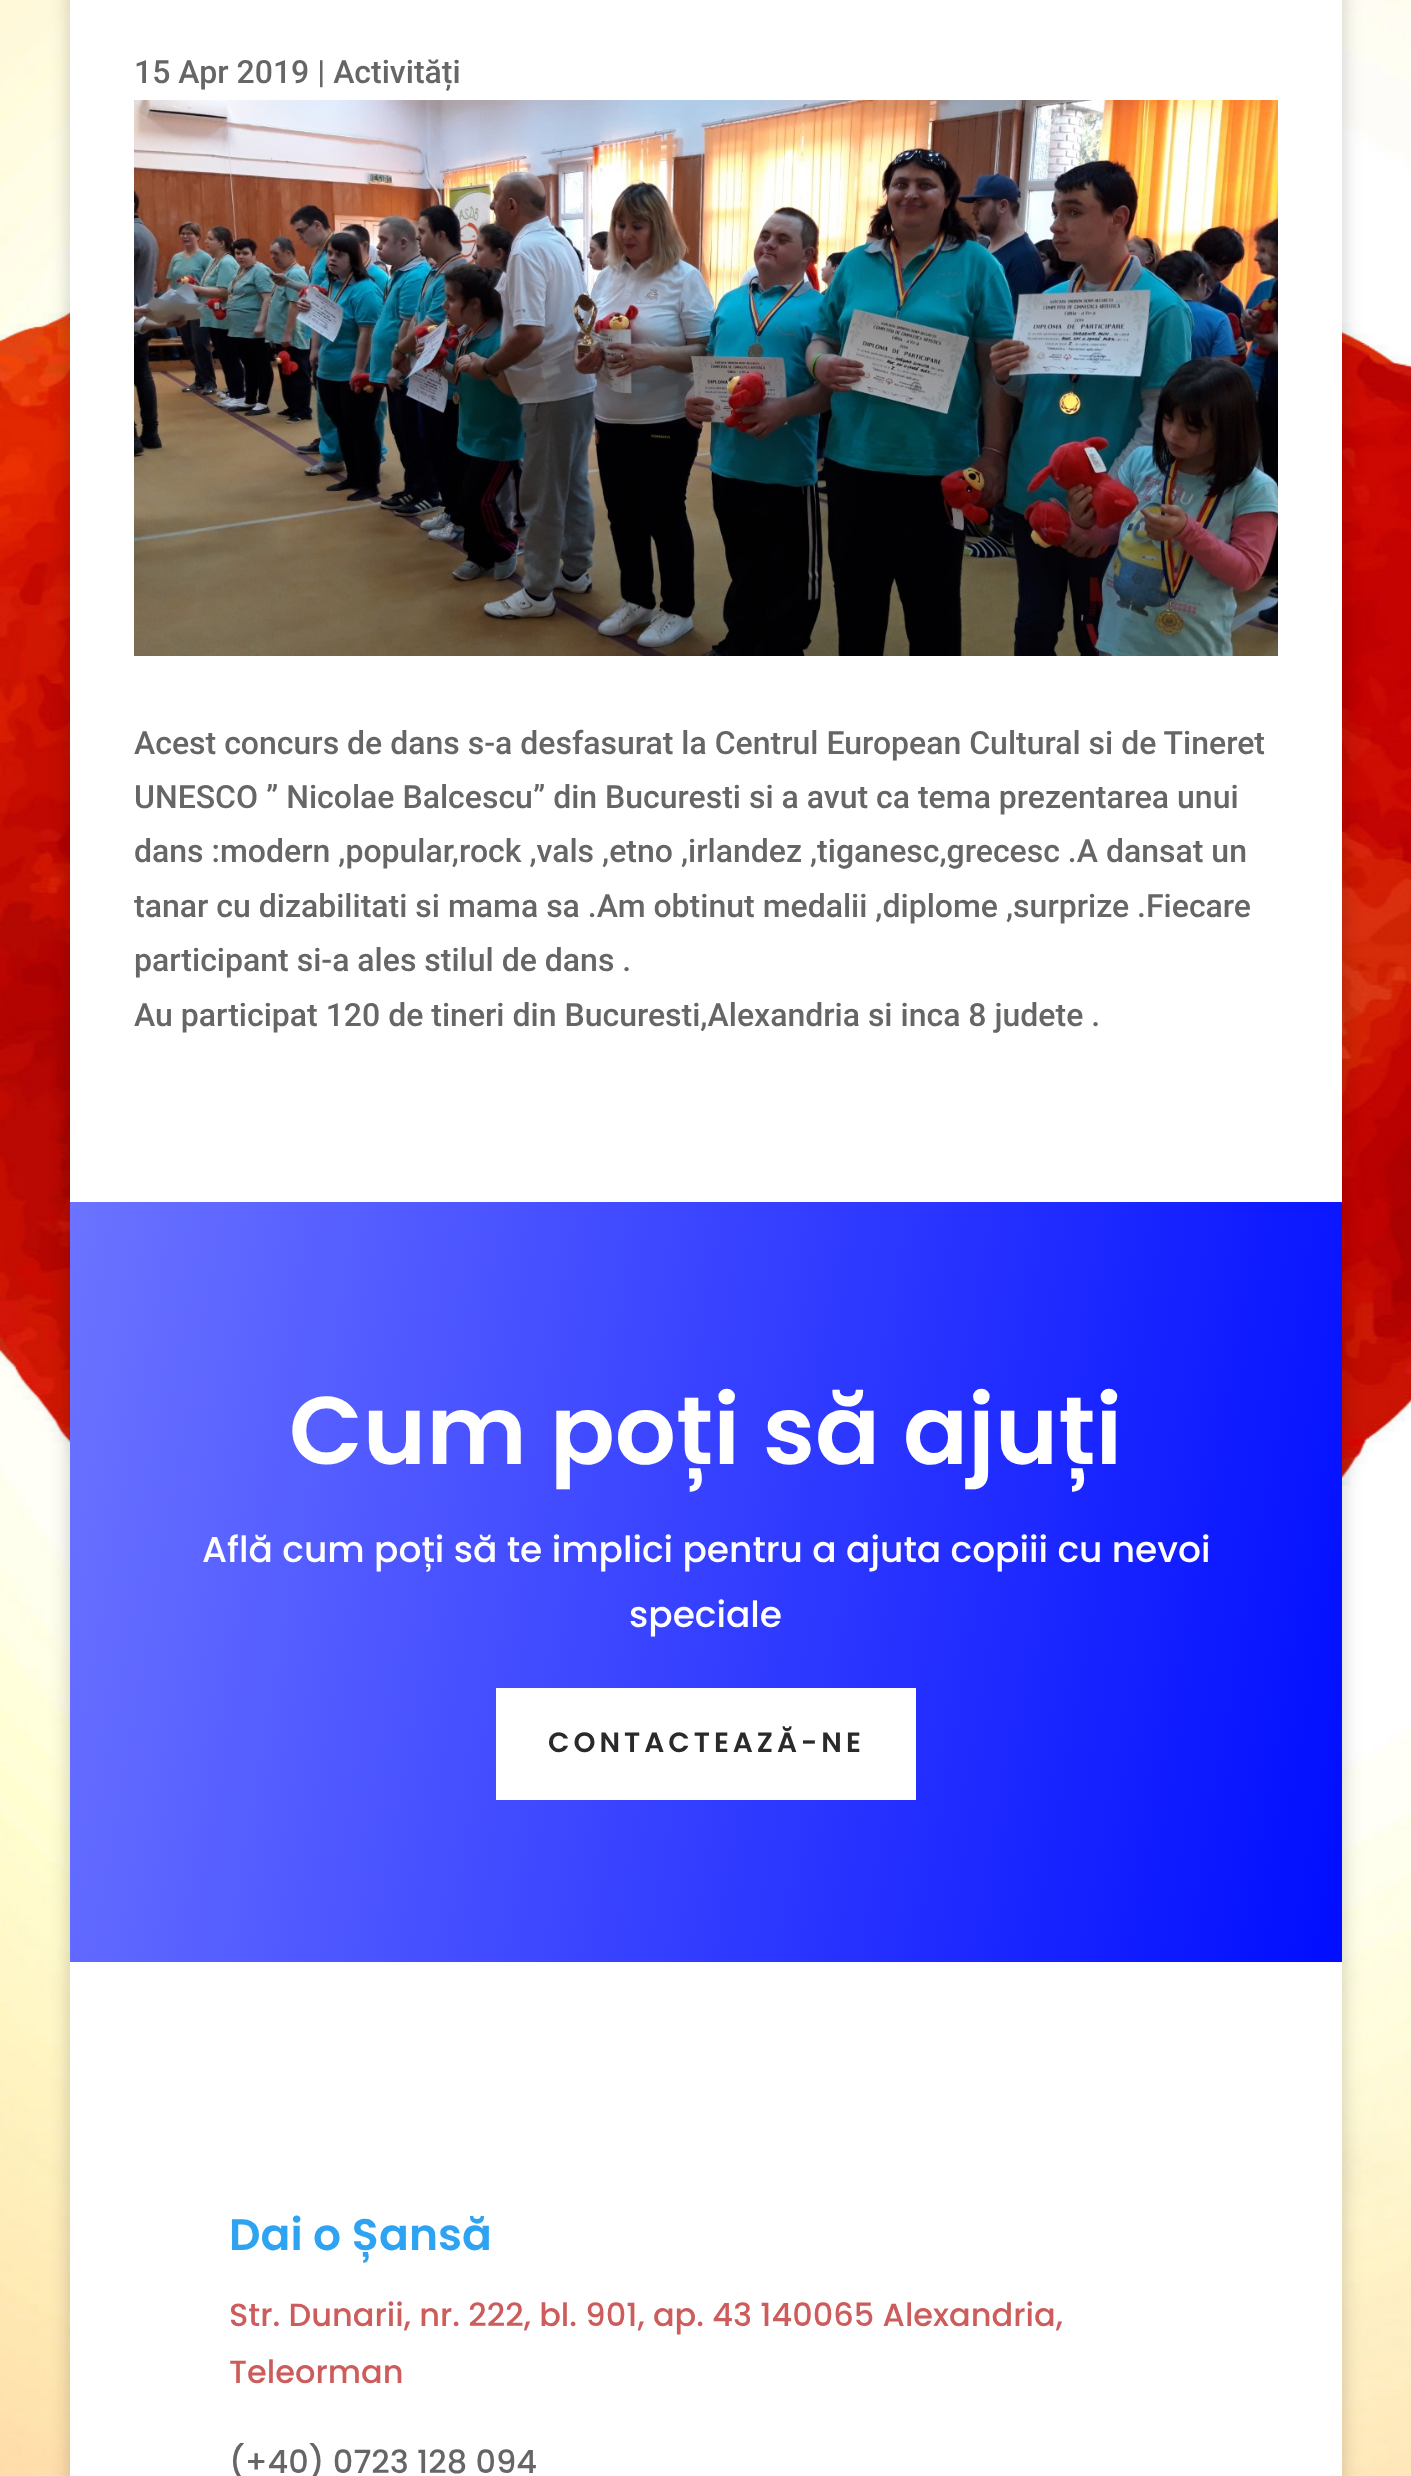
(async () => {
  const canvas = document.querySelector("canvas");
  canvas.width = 1411;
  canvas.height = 2476;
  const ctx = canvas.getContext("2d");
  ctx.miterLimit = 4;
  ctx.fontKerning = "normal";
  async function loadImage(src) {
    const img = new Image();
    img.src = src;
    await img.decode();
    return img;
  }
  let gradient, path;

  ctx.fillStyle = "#ffffff";
  ctx.fillRect(0, 0, 1411, 2476);
  ctx.drawImage(await loadImage("img/1.png"), 0, 0, 1411, 2476);
  ctx.fillStyle = "rgba(0, 0, 0, 0.2)";
  ctx.filter = "blur(10px)";
  ctx.beginPath();
  ctx.rect(70, -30, 1272, 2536);
  ctx.fill();
  ctx.filter = "none";
  ctx.fillStyle = "#ffffff";
  ctx.fillRect(70, 0, 1272, 1202);
  ctx.drawImage(await loadImage("img/2.png"), 134, 100, 1144, 556);
  gradient = ctx.createLinearGradient(24, 1462, 1388, 1702);
  gradient.addColorStop(0, "#6b73ff");
  gradient.addColorStop(1, "#000dff");
  ctx.fillStyle = gradient;
  ctx.fillRect(70, 1202, 1272, 760);
  ctx.fillStyle = "#ffffff";
  ctx.fillRect(520, 1712, 372, 64);
  path = new Path2D("M508 1700H904V1788H508Z");
  ctx.strokeStyle = "#ffffff";
  ctx.lineWidth = 24;
  ctx.stroke(path);
  ctx.fillRect(70, 1962, 1272, 514);
  ctx.font = "500 32px Roboto";
  ctx.fillStyle = "#666666";
  for (const [text, x, y] of [
    ["15 Apr 2019 | Activități", 134, 83],
    ["Acest concurs de dans s-a desfasurat la Centrul European Cultural si de Tineret", 134, 754],
    ["UNESCO ” Nicolae Balcescu” din Bucuresti si a avut ca tema prezentarea unui", 134, 808],
    ["dans :modern ,popular,rock ,vals ,etno ,irlandez ,tiganesc,grecesc .A dansat un", 134, 862],
    ["tanar cu dizabilitati si mama sa .Am obtinut medalii ,diplome ,surprize .Fiecare", 134, 917],
    ["participant si-a ales stilul de dans .", 134, 971],
    ["Au participat 120 de tineri din Bucuresti,Alexandria si inca 8 judete .", 134, 1026],
  ]) {
    ctx.fillText(text, x, y);
  }
  ctx.font = "600 96px Poppins";
  ctx.fillStyle = "#ffffff";
  ctx.fillText("Cum poți să ajuți", 289, 1464);
  ctx.font = "500 36px Poppins";
  ctx.fillText("Află cum poți să te implici pentru a ajuta copiii cu nevoi", 202, 1562);
  ctx.fillText("speciale", 629, 1627);
  ctx.letterSpacing = "4px";
  ctx.font = "600 28px Poppins";
  ctx.fillStyle = "#2a2a2a";
  ctx.fillText("CONTACTEAZĂ-NE", 548, 1752);
  ctx.letterSpacing = "0px";
  ctx.font = "600 44px Poppins";
  ctx.fillStyle = "#2ea3f2";
  ctx.fillText("Dai o Șansă", 229, 2250);
  ctx.font = "500 32px Poppins";
  ctx.fillStyle = "#cd5c5c";
  ctx.fillText("Str. Dunarii, nr. 222, bl. 901, ap. 43 140065 Alexandria,", 229, 2326);
  ctx.fillText("Teleorman", 229, 2383);
  ctx.fillStyle = "#666666";
  ctx.fillText("(+40) 0723 128 094", 229, 2473);
})();
